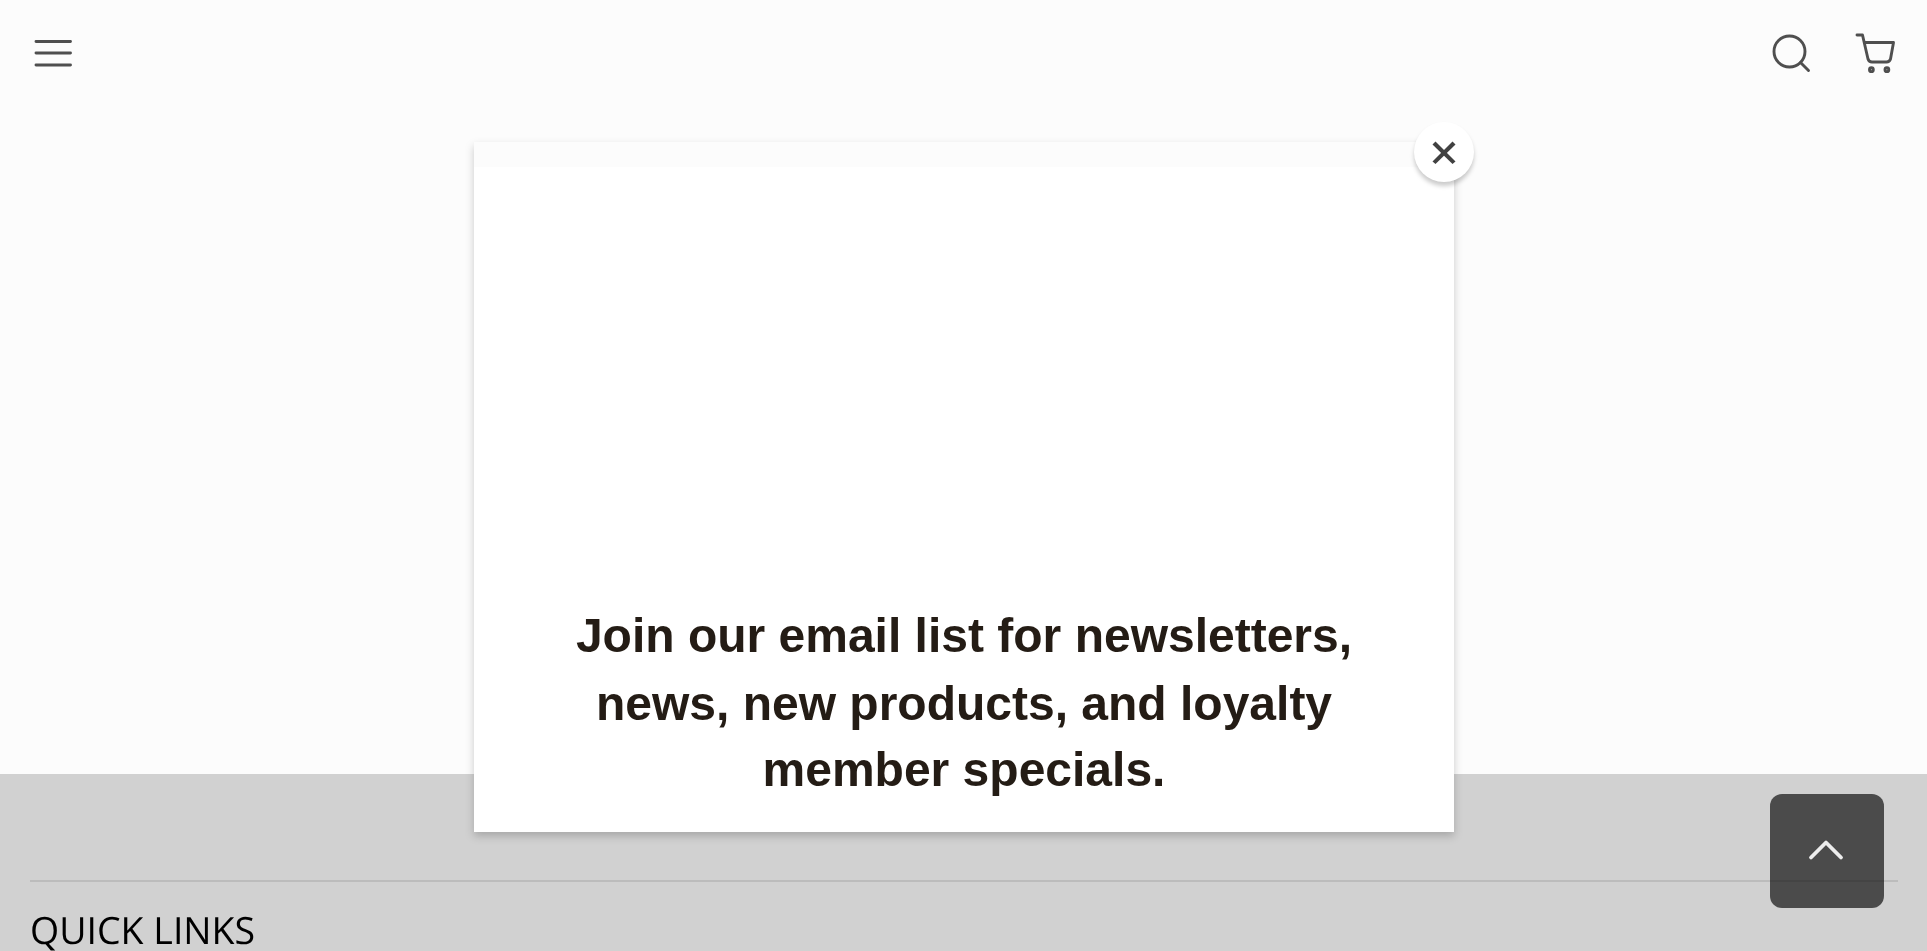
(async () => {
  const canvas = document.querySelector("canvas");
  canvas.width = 1927;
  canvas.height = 951;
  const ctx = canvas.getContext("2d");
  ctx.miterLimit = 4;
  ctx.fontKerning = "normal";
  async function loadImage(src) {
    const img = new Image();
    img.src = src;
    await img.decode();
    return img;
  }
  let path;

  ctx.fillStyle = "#fcfcfc";
  ctx.fillRect(0, 0, 1927, 951);
  ctx.fillStyle = "#d1d1d1";
  ctx.fillRect(0, 774, 1927, 177);
  ctx.save();
  path = new Path2D("M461 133H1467V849H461ZM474 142H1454V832H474Z");
  ctx.clip(path, "evenodd");
  ctx.fillStyle = "rgba(0, 0, 0, 0.2)";
  ctx.filter = "blur(4px)";
  ctx.beginPath();
  ctx.rect(474, 146, 980, 690);
  ctx.fill();
  ctx.filter = "none";
  ctx.restore();
  ctx.drawImage(await loadImage("img/1.png"), 474, 167, 980, 665);
  ctx.fillStyle = "rgba(0, 0, 0, 0.2)";
  ctx.filter = "blur(2px)";
  ctx.beginPath();
  ctx.roundRect(1414, 126, 60, 60, 30);
  ctx.fill();
  ctx.filter = "none";
  ctx.fillStyle = "#ffffff";
  ctx.beginPath();
  ctx.arc(1444, 152, 30, 0, Math.PI * 2);
  ctx.fill();
  ctx.fillStyle = "#414141";
  path = new Path2D("M1452.5 141.5L1455.5 144.5L1435.5 164L1432.5 161.5Z");
  ctx.fill(path);
  path = new Path2D("M1432.5 144.5L1435.5 141.5L1455.5 161.5L1452.5 164Z");
  ctx.fill(path);
  ctx.fillStyle = "#bcbcbc";
  ctx.fillRect(30, 880, 1868, 2);
  ctx.fillStyle = "rgba(0, 0, 0, 0.64)";
  ctx.beginPath();
  ctx.roundRect(1770, 794, 114, 114, 12);
  ctx.fill();
  path = new Path2D("M1841 857.5L1826 842.5L1811 857.5");
  ctx.strokeStyle = "#ededed";
  ctx.lineWidth = 3.8;
  ctx.lineCap = "round";
  ctx.lineJoin = "round";
  ctx.stroke(path);
  path = new Path2D("M36 53H70.5M36 41.5H70.5M36 65H70.5");
  ctx.strokeStyle = "#4f4f4f";
  ctx.lineWidth = 2.9;
  ctx.stroke(path);
  ctx.beginPath();
  ctx.arc(1789.5, 51.5, 15.5, 0, Math.PI * 2);
  ctx.stroke();
  path = new Path2D("M1808.5 70.5L1800.5 62.5");
  ctx.stroke(path);
  ctx.beginPath();
  ctx.arc(1871.4, 69.7, 1.9, 0, Math.PI * 2);
  ctx.stroke();
  ctx.beginPath();
  ctx.arc(1886.9, 69.7, 1.9, 0, Math.PI * 2);
  ctx.stroke();
  path = new Path2D("M1857 35H1862.5L1868 59C1868.5 60.5 1870 62 1872 62H1886.5C1888.5 62 1890 60.5 1890.5 59L1893.5 42.5H1866");
  ctx.stroke(path);
  ctx.font = "37.5px Open Sans";
  ctx.fillStyle = "#000000";
  ctx.fillText("QUICK LINKS", 30, 944);
})();
